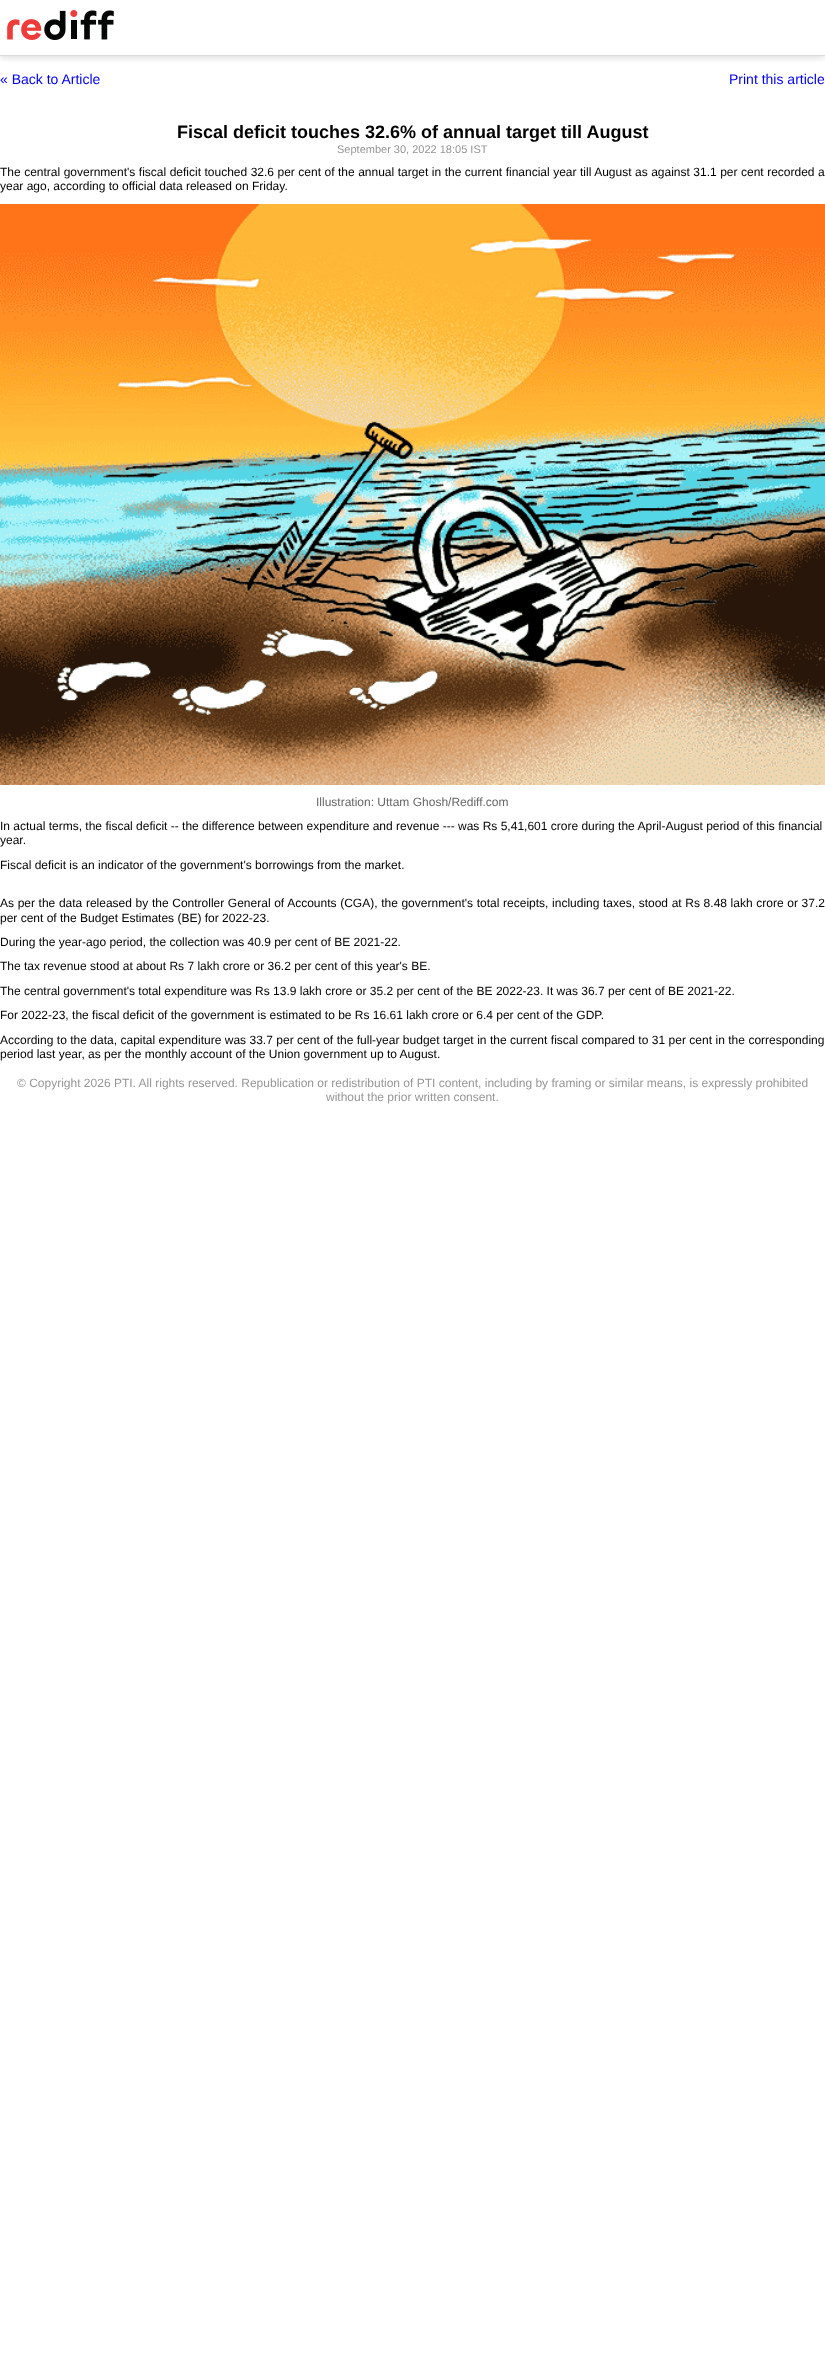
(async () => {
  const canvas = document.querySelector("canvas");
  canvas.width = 825;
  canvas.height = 2380;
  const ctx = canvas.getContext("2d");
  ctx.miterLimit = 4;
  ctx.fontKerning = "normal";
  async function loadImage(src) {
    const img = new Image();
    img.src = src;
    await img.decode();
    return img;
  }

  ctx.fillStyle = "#ffffff";
  ctx.fillRect(0, 0, 825, 2380);
  ctx.save();
  ctx.beginPath();
  ctx.rect(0, 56, 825, 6);
  ctx.clip();
  ctx.fillStyle = "rgba(0, 0, 0, 0.2)";
  ctx.filter = "blur(5px)";
  ctx.beginPath();
  ctx.rect(0, 0, 825, 56);
  ctx.fill();
  ctx.filter = "none";
  ctx.restore();
  ctx.fillStyle = "#dbdbdb";
  ctx.fillRect(0, 55, 825, 1);
  ctx.drawImage(await loadImage("img/1.png"), 7, 10, 107, 30);
  ctx.drawImage(await loadImage("img/2.png"), 0, 204, 825, 581);
  ctx.font = "14px Liberation Sans";
  ctx.fillStyle = "#0000ee";
  ctx.fillText("« Back to Article", 0, 84);
  ctx.fillText("Print this article", 729, 84);
  ctx.font = "bold 18px Liberation Sans";
  ctx.fillStyle = "#000000";
  ctx.fillText("Fiscal deficit touches 32.6% of annual target till August", 177, 138);
  ctx.font = "11px Liberation Sans";
  ctx.fillStyle = "#969696";
  ctx.fillText("September 30, 2022 18:05 IST", 337, 153);
  ctx.wordSpacing = "0.15px";
  ctx.font = "12px Liberation Sans";
  ctx.fillStyle = "#000000";
  ctx.fillText("The central government's fiscal deficit touched 32.6 per cent of the annual target in the current financial year till August as against 31.1 per cent recorded a", 0, 176);
  ctx.wordSpacing = "0px";
  ctx.fillText("year ago, according to official data released on Friday.", 0, 190);
  ctx.fillStyle = "#666666";
  ctx.fillText("Illustration: Uttam Ghosh/Rediff.com", 316, 806);
  ctx.fillStyle = "#000000";
  for (const [text, x, y] of [
    ["In actual terms, the fiscal deficit -- the difference between expenditure and revenue --- was Rs 5,41,601 crore during the April-August period of this financial", 0, 830],
    ["year.", 0, 844],
    ["Fiscal deficit is an indicator of the government's borrowings from the market.", 0, 869],
  ]) {
    ctx.fillText(text, x, y);
  }
  ctx.wordSpacing = "0.3px";
  ctx.fillText("As per the data released by the Controller General of Accounts (CGA), the government's total receipts, including taxes, stood at Rs 8.48 lakh crore or 37.2", 0, 907);
  ctx.wordSpacing = "0px";
  for (const [text, x, y] of [
    ["per cent of the Budget Estimates (BE) for 2022-23.", 0, 922],
    ["During the year-ago period, the collection was 40.9 per cent of BE 2021-22.", 0, 946],
    ["The tax revenue stood at about Rs 7 lakh crore or 36.2 per cent of this year's BE.", 0, 970],
    ["The central government's total expenditure was Rs 13.9 lakh crore or 35.2 per cent of the BE 2022-23. It was 36.7 per cent of BE 2021-22.", 0, 995],
    ["For 2022-23, the fiscal deficit of the government is estimated to be Rs 16.61 lakh crore or 6.4 per cent of the GDP.", 0, 1019],
  ]) {
    ctx.fillText(text, x, y);
  }
  ctx.wordSpacing = "0.1px";
  ctx.fillText("According to the data, capital expenditure was 33.7 per cent of the full-year budget target in the current fiscal compared to 31 per cent in the corresponding", 0, 1044);
  ctx.wordSpacing = "0px";
  ctx.fillText("period last year, as per the monthly account of the Union government up to August.", 0, 1058);
  ctx.fillStyle = "#969696";
  ctx.fillText("© Copyright 2026 PTI. All rights reserved. Republication or redistribution of PTI content, including by framing or similar means, is expressly prohibited", 17, 1087);
  ctx.fillText("without the prior written consent.", 326, 1101);
})();
